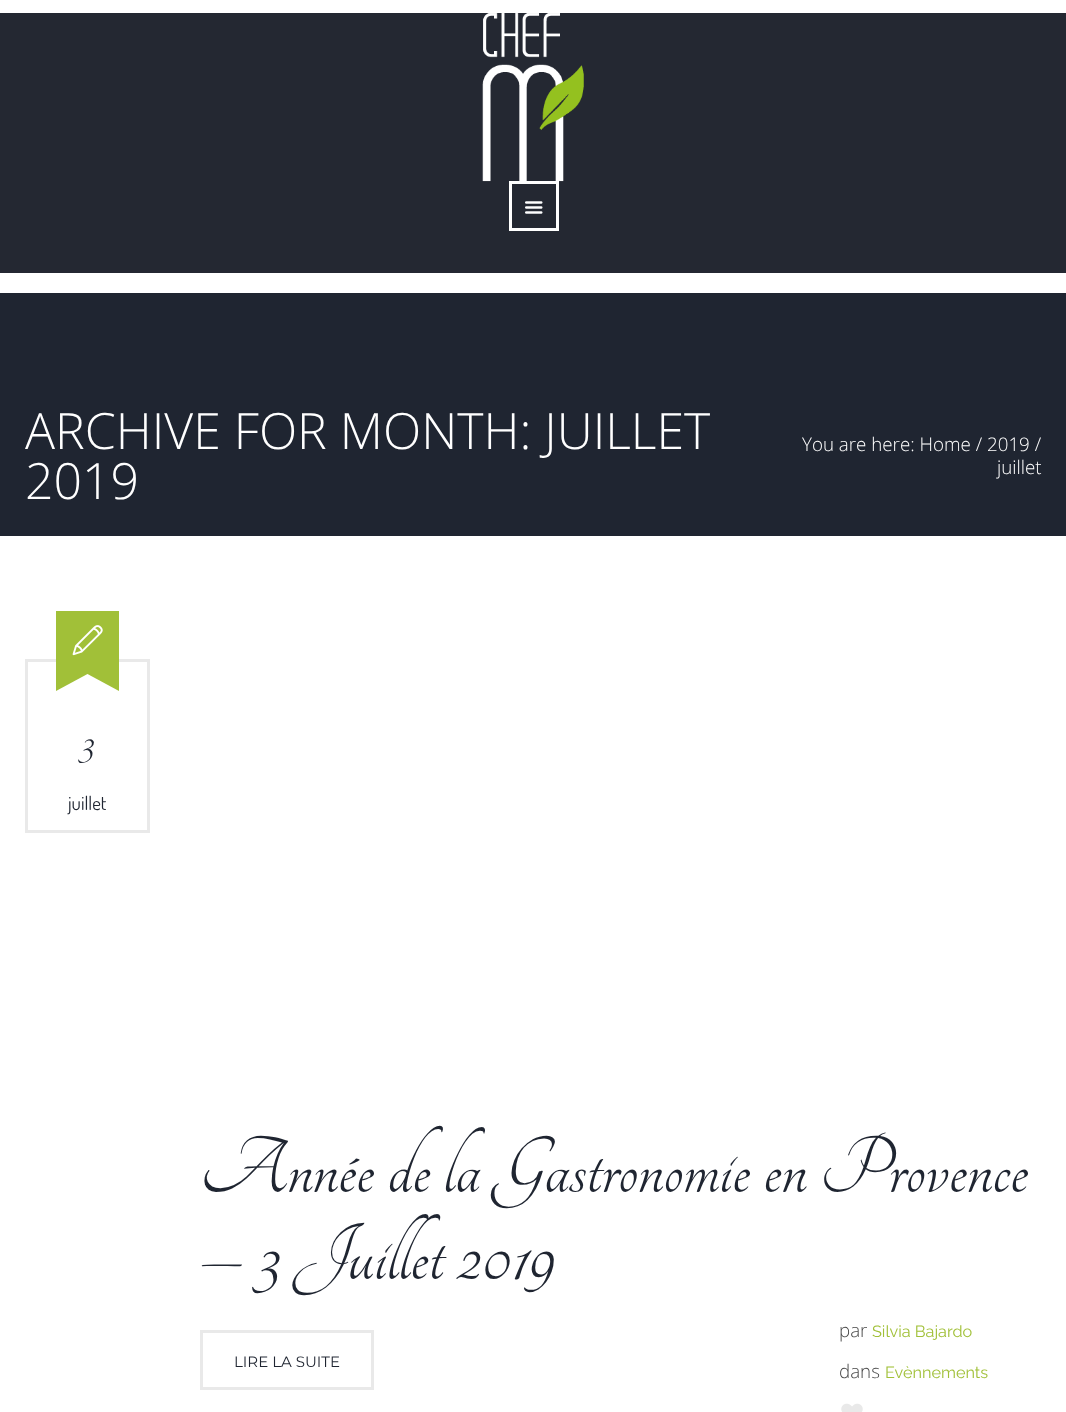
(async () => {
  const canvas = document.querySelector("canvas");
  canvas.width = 1066;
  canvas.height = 1412;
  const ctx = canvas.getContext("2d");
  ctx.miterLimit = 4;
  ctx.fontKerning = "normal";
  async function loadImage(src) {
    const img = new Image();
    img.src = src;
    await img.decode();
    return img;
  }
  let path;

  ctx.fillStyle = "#ffffff";
  ctx.fillRect(0, 0, 1066, 1412);
  ctx.fillStyle = "#242832";
  ctx.fillRect(0, 13, 1066, 260);
  ctx.drawImage(await loadImage("img/1.png"), 482, 13, 102, 169);
  ctx.strokeStyle = "#ffffff";
  ctx.lineWidth = 3;
  ctx.strokeRect(510.5, 182.5, 47, 47);
  ctx.drawImage(await loadImage("img/2.png"), 525, 201, 18, 13);
  ctx.fillStyle = "#1f2531";
  ctx.fillRect(0, 293, 1066, 243);
  ctx.strokeStyle = "#e9e9e9";
  ctx.strokeRect(26.5, 660.5, 122, 171);
  ctx.fillStyle = "#a1c038";
  ctx.fillRect(56, 611, 63, 63);
  ctx.drawImage(await loadImage("img/3.png"), 72, 625, 31, 31);
  path = new Path2D("M56 674H87.5L56 691Z");
  ctx.fill(path);
  path = new Path2D("M87.5 674H119V691Z");
  ctx.fill(path);
  ctx.strokeRect(201.5, 1331.5, 171, 57);
  ctx.drawImage(await loadImage("img/4.png"), 841, 1403, 22, 9);
  ctx.font = "300 50px Open Sans";
  ctx.fillStyle = "#ffffff";
  ctx.fillText("ARCHIVE FOR MONTH: JUILLET", 25, 449);
  ctx.fillText("2019", 25, 499);
  ctx.font = "300 18.75px Open Sans";
  ctx.fillText("You are here: Home / 2019 /", 802, 451);
  ctx.fillText("juillet", 997, 474);
  ctx.font = "50px Tangerine";
  ctx.fillStyle = "#1f2531";
  ctx.fillText("3", 81, 755);
  ctx.font = "18.75px Dosis";
  ctx.fillText("juillet", 68, 810);
  ctx.font = "87.5px Tangerine";
  ctx.fillText("Année de la Gastronomie en Provence", 200, 1192);
  ctx.fillText("– 3 Juillet 2019", 200, 1279);
  ctx.font = "15px Montserrat";
  ctx.fillText("LIRE LA SUITE", 234, 1367);
  ctx.font = "300 18.75px Open Sans";
  ctx.fillStyle = "#494949";
  ctx.fillText("par", 839, 1337);
  ctx.font = "16.25px Raleway";
  ctx.fillStyle = "#a1c038";
  ctx.fillText("Silvia Bajardo", 872, 1337);
  ctx.font = "300 18.75px Open Sans";
  ctx.fillStyle = "#494949";
  ctx.fillText("dans", 839, 1378);
  ctx.font = "16.25px Raleway";
  ctx.fillStyle = "#a1c038";
  ctx.fillText("Evènnements", 885, 1378);
})();
